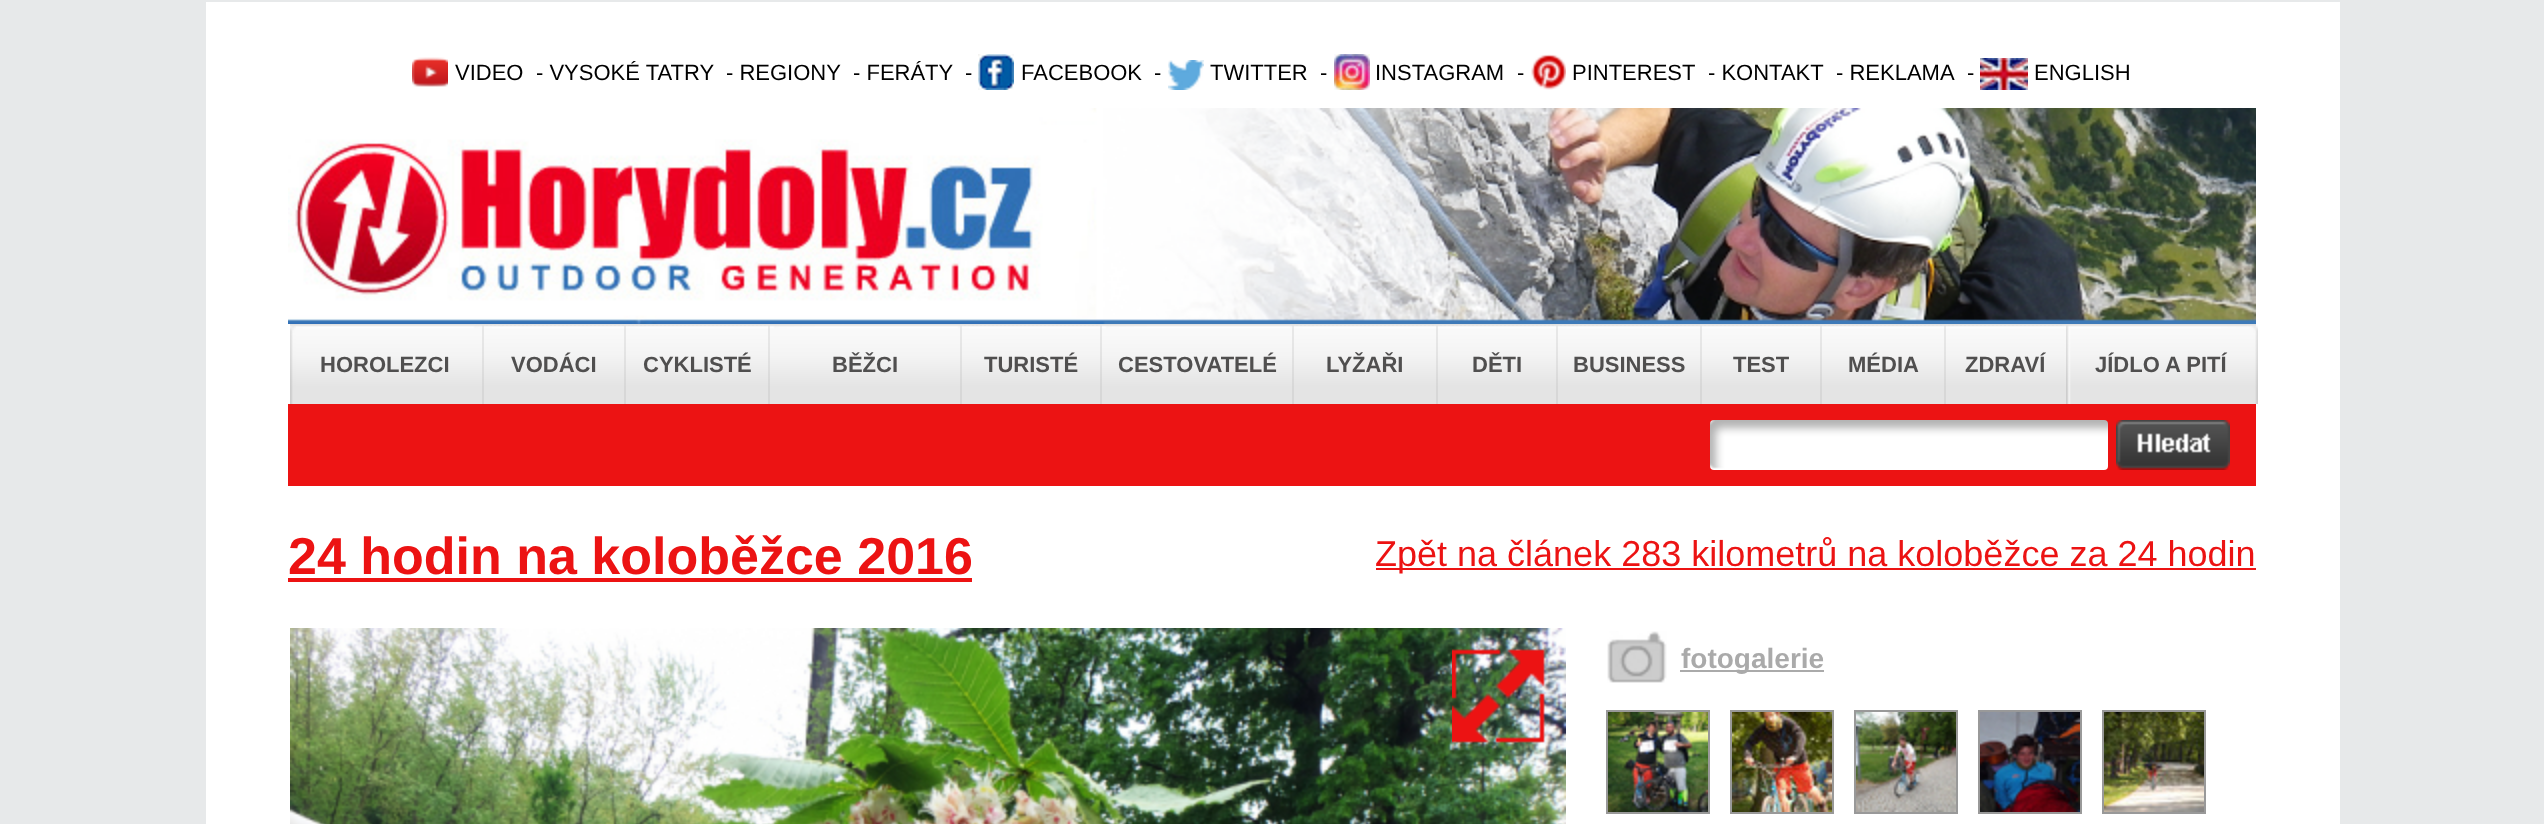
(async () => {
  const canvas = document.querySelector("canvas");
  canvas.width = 2544;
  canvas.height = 824;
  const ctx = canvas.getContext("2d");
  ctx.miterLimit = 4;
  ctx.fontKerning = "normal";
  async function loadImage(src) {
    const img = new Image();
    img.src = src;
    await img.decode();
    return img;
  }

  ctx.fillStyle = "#e7e9ea";
  ctx.fillRect(0, 0, 2544, 824);
  ctx.fillStyle = "#ffffff";
  ctx.fillRect(206, 2, 2134, 822);
  ctx.drawImage(await loadImage("img/1.png"), 412, 57, 36, 30);
  ctx.drawImage(await loadImage("img/2.png"), 978, 54, 36, 36);
  ctx.drawImage(await loadImage("img/3.png"), 1168, 60, 36, 30);
  ctx.drawImage(await loadImage("img/4.png"), 1334, 54, 36, 36);
  ctx.drawImage(await loadImage("img/5.png"), 1531, 54, 35, 36);
  ctx.drawImage(await loadImage("img/6.png"), 1980, 58, 48, 32);
  ctx.drawImage(await loadImage("img/7.png"), 288, 108, 1968, 216);
  ctx.drawImage(await loadImage("img/8.png"), 290, 324, 1966, 80);
  ctx.drawImage(await loadImage("img/9.png"), 290, 326, 6, 78);
  ctx.drawImage(await loadImage("img/10.png"), 482, 325, 142, 79);
  ctx.drawImage(await loadImage("img/11.png"), 484, 326, 140, 78);
  ctx.drawImage(await loadImage("img/12.png"), 624, 325, 144, 79);
  ctx.drawImage(await loadImage("img/13.png"), 626, 326, 142, 78);
  ctx.drawImage(await loadImage("img/14.png"), 768, 325, 192, 79);
  ctx.drawImage(await loadImage("img/15.png"), 770, 325, 190, 79);
  ctx.drawImage(await loadImage("img/16.png"), 960, 325, 140, 79);
  ctx.drawImage(await loadImage("img/17.png"), 962, 326, 138, 78);
  ctx.drawImage(await loadImage("img/14.png"), 1100, 325, 192, 79);
  ctx.drawImage(await loadImage("img/15.png"), 1102, 325, 190, 79);
  ctx.drawImage(await loadImage("img/12.png"), 1292, 325, 144, 79);
  ctx.drawImage(await loadImage("img/13.png"), 1294, 326, 142, 78);
  ctx.drawImage(await loadImage("img/18.png"), 1436, 325, 120, 79);
  ctx.drawImage(await loadImage("img/19.png"), 1438, 326, 118, 78);
  ctx.drawImage(await loadImage("img/12.png"), 1556, 325, 144, 79);
  ctx.drawImage(await loadImage("img/13.png"), 1558, 326, 142, 78);
  ctx.drawImage(await loadImage("img/18.png"), 1700, 325, 120, 79);
  ctx.drawImage(await loadImage("img/19.png"), 1702, 326, 118, 78);
  ctx.drawImage(await loadImage("img/20.png"), 1820, 325, 124, 79);
  ctx.drawImage(await loadImage("img/21.png"), 1822, 326, 122, 78);
  ctx.drawImage(await loadImage("img/18.png"), 1944, 325, 120, 79);
  ctx.drawImage(await loadImage("img/19.png"), 1946, 326, 118, 78);
  ctx.drawImage(await loadImage("img/22.png"), 2066, 325, 192, 79);
  ctx.fillStyle = "#ec1313";
  ctx.fillRect(288, 404, 1968, 82);
  ctx.drawImage(await loadImage("img/23.png"), 1710, 420, 398, 50);
  ctx.drawImage(await loadImage("img/24.png"), 2116, 420, 114, 50);
  ctx.fillRect(288, 578, 684, 4);
  ctx.fillRect(1376, 568, 880, 2);
  ctx.drawImage(await loadImage("img/25.png"), 290, 628, 1276, 196);
  ctx.drawImage(await loadImage("img/26.png"), 1452, 649, 94, 94);
  ctx.drawImage(await loadImage("img/27.png"), 1607, 631, 60, 52);
  ctx.fillStyle = "#aaaaaa";
  ctx.fillRect(1680, 670, 144, 2);
  ctx.strokeStyle = "#999999";
  ctx.lineWidth = 2;
  ctx.strokeRect(1607, 711, 102, 102);
  ctx.drawImage(await loadImage("img/28.png"), 1608, 712, 100, 100);
  ctx.strokeRect(1731, 711, 102, 102);
  ctx.drawImage(await loadImage("img/29.png"), 1732, 712, 100, 100);
  ctx.strokeRect(1855, 711, 102, 102);
  ctx.drawImage(await loadImage("img/30.png"), 1856, 712, 100, 100);
  ctx.strokeRect(1979, 711, 102, 102);
  ctx.drawImage(await loadImage("img/31.png"), 1980, 712, 100, 100);
  ctx.strokeRect(2103, 711, 102, 102);
  ctx.drawImage(await loadImage("img/32.png"), 2104, 712, 100, 100);
  ctx.font = "22px Liberation Sans";
  ctx.fillStyle = "#000000";
  for (const [text, x, y] of [
    ["VIDEO", 455, 80],
    ["- VYSOKÉ TATRY", 536, 80],
    ["- REGIONY", 726, 80],
    ["- FERÁTY", 853, 80],
    ["-", 965, 80],
    ["FACEBOOK", 1021, 80],
    ["-", 1154, 80],
    ["TWITTER", 1210, 80],
    ["-", 1320, 80],
    ["INSTAGRAM", 1375, 80],
    ["-", 1517, 80],
    ["PINTEREST", 1572, 80],
    ["- KONTAKT", 1708, 80],
    ["- REKLAMA", 1836, 80],
    ["-", 1967, 80],
    ["ENGLISH", 2034, 80],
  ]) {
    ctx.fillText(text, x, y);
  }
  ctx.font = "bold 22px Liberation Sans";
  ctx.fillStyle = "#504f4f";
  for (const [text, x, y] of [
    ["HOROLEZCI", 320, 372],
    ["VODÁCI", 511, 372],
    ["CYKLISTÉ", 643, 372],
    ["BĚŽCI", 832, 372],
    ["TURISTÉ", 984, 372],
    ["CESTOVATELÉ", 1118, 372],
    ["LYŽAŘI", 1326, 372],
    ["DĚTI", 1472, 372],
    ["BUSINESS", 1573, 372],
    ["TEST", 1733, 372],
    ["MÉDIA", 1848, 372],
    ["ZDRAVÍ", 1965, 372],
    ["JÍDLO A PITÍ", 2095, 372],
  ]) {
    ctx.fillText(text, x, y);
  }
  ctx.font = "bold 52px Liberation Sans";
  ctx.fillStyle = "#ec1313";
  ctx.fillText("24 hodin na koloběžce 2016", 288, 574);
  ctx.font = "36px Liberation Sans";
  ctx.fillText("Zpět na článek 283 kilometrů na koloběžce za 24 hodin", 1375, 566);
  ctx.font = "bold 28px Liberation Sans";
  ctx.fillStyle = "#aaaaaa";
  ctx.fillText("fotogalerie", 1681, 668);
})();
